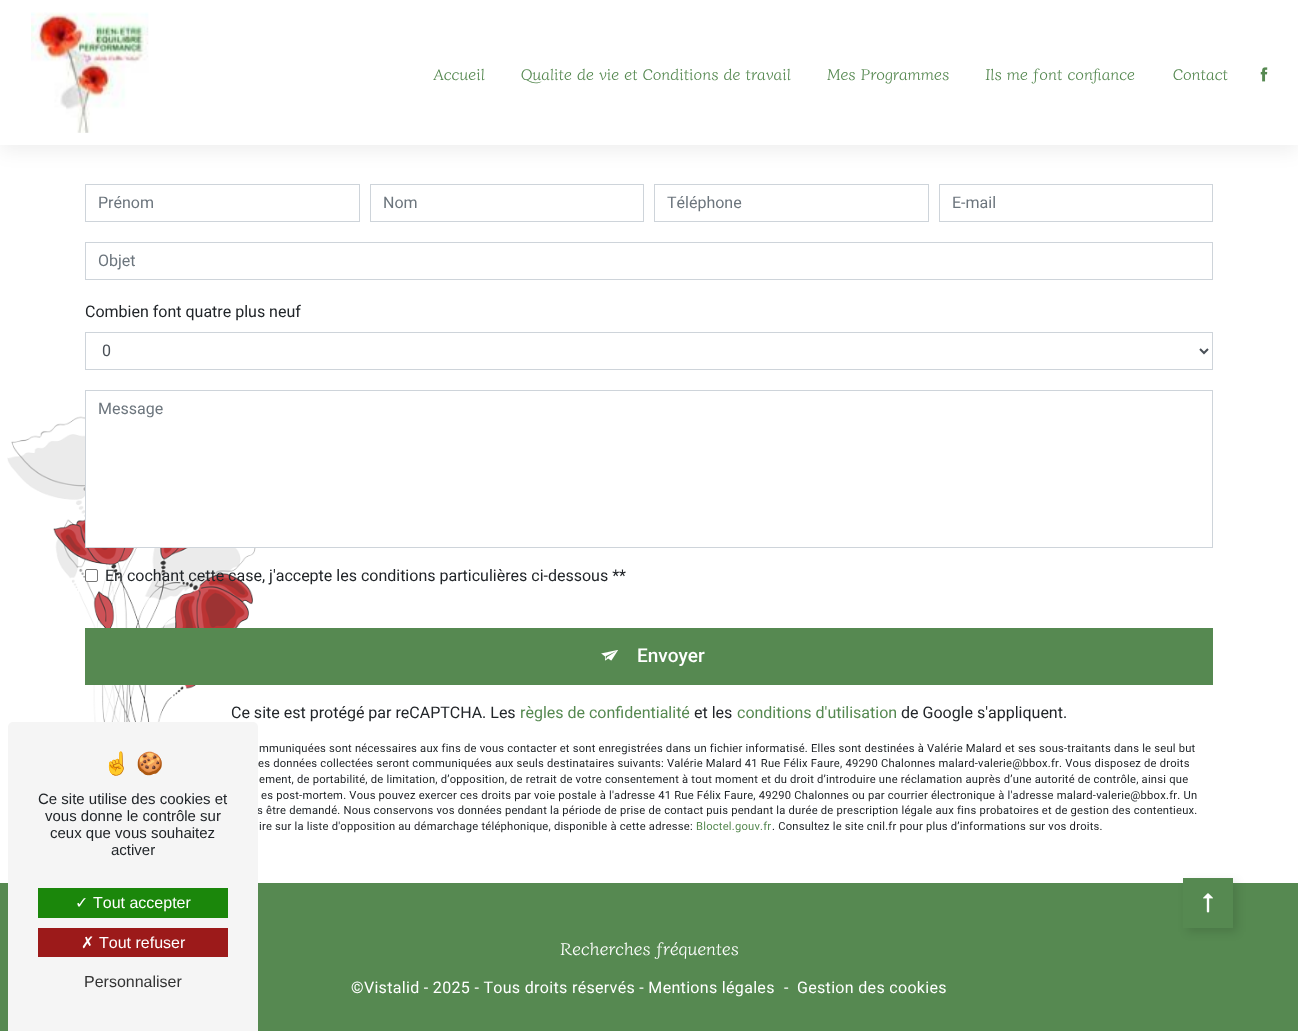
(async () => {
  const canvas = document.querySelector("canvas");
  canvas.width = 1298;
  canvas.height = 1031;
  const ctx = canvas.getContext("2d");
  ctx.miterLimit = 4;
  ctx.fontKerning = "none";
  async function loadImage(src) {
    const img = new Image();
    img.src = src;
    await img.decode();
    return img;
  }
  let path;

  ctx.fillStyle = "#ffffff";
  ctx.fillRect(0, 0, 1298, 1031);
  ctx.fillStyle = "rgba(0, 0, 0, 0.07)";
  ctx.filter = "blur(10px)";
  ctx.beginPath();
  ctx.rect(0, 5, 1298, 145);
  ctx.fill();
  ctx.filter = "none";
  ctx.fillStyle = "#ffffff";
  ctx.fillRect(0, 0, 1298, 145);
  ctx.drawImage(await loadImage("img/1.png"), 31, 12, 118, 121);
  ctx.drawImage(await loadImage("img/2.png"), 1260, 67, 8, 15);
  ctx.strokeStyle = "#ced4da";
  ctx.strokeRect(85.5, 184.5, 274, 37);
  ctx.strokeRect(370.5, 184.5, 273, 37);
  ctx.strokeRect(654.5, 184.5, 274, 37);
  ctx.strokeRect(939.5, 184.5, 273, 37);
  ctx.strokeRect(85.5, 242.5, 1127, 37);
  ctx.strokeRect(85.5, 332.5, 1127, 37);
  path = new Path2D("M1200 349L1204 353L1208 349");
  ctx.strokeStyle = "#495057";
  ctx.lineWidth = 2;
  ctx.stroke(path);
  ctx.fillStyle = "#568951";
  ctx.fillRect(0, 883, 1298, 148);
  ctx.fillStyle = "rgba(0, 0, 0, 0.12)";
  ctx.filter = "blur(5px)";
  ctx.beginPath();
  ctx.rect(1187, 882, 50, 50);
  ctx.fill();
  ctx.filter = "none";
  ctx.fillStyle = "#568951";
  ctx.fillRect(1183, 878, 50, 50);
  ctx.drawImage(await loadImage("img/5.png"), 1203, 893, 10, 20);
  ctx.font = "16px Diphylleia";
  for (const [text, x, y] of [
    ["Accueil", 433, 80],
    ["Qualite de vie et Conditions de travail", 521, 80],
    ["Mes Programmes", 827, 80],
    ["Ils me font confiance", 985, 80],
    ["Contact", 1173, 80],
  ]) {
    ctx.fillText(text, x, y);
  }
  ctx.font = "16px Roboto";
  ctx.fillStyle = "#6c757d";
  for (const [text, x, y] of [
    ["Prénom", 98, 208],
    ["Nom", 383, 208],
    ["Téléphone", 667, 208],
    ["E-mail", 952, 208],
    ["Objet", 98, 266],
  ]) {
    ctx.fillText(text, x, y);
  }
  ctx.fillStyle = "#212529";
  ctx.fillText("Combien font quatre plus neuf", 85, 317);
  ctx.fillStyle = "#495057";
  ctx.fillText("0", 102, 356);
  ctx.fillStyle = "#212529";
  ctx.fillText("Ce site est protégé par reCAPTCHA. Les", 231, 718);
  ctx.fillStyle = "#568951";
  ctx.fillText("règles de confidentialité", 520, 718);
  ctx.fillStyle = "#212529";
  ctx.fillText("et les", 694, 718);
  ctx.fillStyle = "#568951";
  ctx.fillText("conditions d'utilisation", 737, 718);
  ctx.fillStyle = "#212529";
  ctx.fillText("de Google s'appliquent.", 901, 718);
  ctx.letterSpacing = "0.22px";
  ctx.font = "11.2px Roboto";
  for (const [text, x, y] of [
    ["mmuniquées sont nécessaires aux fins de vous contacter et sont enregistrées dans un fichier informatisé. Elles sont destinées à Valérie Malard et ses sous-traitants dans le seul but", 259, 752],
    ["es données collectées seront communiquées aux seuls destinataires suivants: Valérie Malard 41 Rue Félix Faure, 49290 Chalonnes malard-valerie@bbox.fr. Vous disposez de droits", 258, 767],
    ["ement, de portabilité, de limitation, d’opposition, de retrait de votre consentement à tout moment et du droit d’introduire une réclamation auprès d’une autorité de contrôle, ainsi que", 259, 783],
    ["es post-mortem. Vous pouvez exercer ces droits par voie postale à l'adresse 41 Rue Félix Faure, 49290 Chalonnes ou par courrier électronique à l'adresse malard-valerie@bbox.fr. Un", 261, 799],
    ["s être demandé. Nous conservons vos données pendant la période de prise de contact puis pendant la durée de prescription légale aux fins probatoires et de gestion des contentieux.", 257, 814],
    ["ire sur la liste d'opposition au démarchage téléphonique, disponible à cette adresse:", 259, 830],
  ]) {
    ctx.fillText(text, x, y);
  }
  ctx.fillStyle = "#568951";
  ctx.fillText("Bloctel.gouv.fr", 696, 830);
  ctx.fillStyle = "#212529";
  ctx.fillText(". Consultez le site cnil.fr pour plus d’informations sur vos droits.", 772, 830);
  ctx.drawImage(await loadImage("img/4.png"), 7, 416, 249, 306);
  ctx.fillStyle = "#568951";
  ctx.fillRect(85, 628, 1128, 57);
  ctx.letterSpacing = "0px";
  ctx.font = "500 19px Roboto";
  ctx.fillStyle = "#ffffff";
  ctx.fillText("Envoyer", 637, 662);
  ctx.drawImage(await loadImage("img/3.png"), 601, 650, 17, 11);
  ctx.beginPath();
  ctx.roundRect(85.5, 569.5, 12, 12, 1.5);
  ctx.fill();
  ctx.strokeStyle = "#767676";
  ctx.lineWidth = 1;
  ctx.stroke();
  ctx.font = "16px Roboto";
  ctx.fillStyle = "#212529";
  ctx.fillText("En cochant cette case, j'accepte les conditions particulières ci-dessous **", 105, 581);
  ctx.fillStyle = "#ffffff";
  ctx.fillRect(86, 416, 170, 131);
  ctx.strokeStyle = "#ced4da";
  ctx.strokeRect(85.5, 390.5, 1127, 157);
  ctx.fillStyle = "#6c757d";
  ctx.fillText("Message", 98, 414);
  ctx.font = "17.6px Diphylleia";
  ctx.fillStyle = "#ffffff";
  ctx.fillText("Recherches fréquentes", 560, 955);
  ctx.letterSpacing = "0.32px";
  ctx.font = "16px Roboto";
  for (const [text, x, y] of [
    ["©Vistalid - 2025 - Tous droits réservés - Mentions légales", 351, 993],
    ["-", 784, 993],
    ["Gestion des cookies", 797, 993],
  ]) {
    ctx.fillText(text, x, y);
  }
  ctx.fillStyle = "#f5f5f5";
  ctx.beginPath();
  ctx.roundRect(8, 722, 250, 309, [5, 5, 0, 0]);
  ctx.fill();
  ctx.letterSpacing = "0px";
  ctx.font = "22px Noto Color Emoji";
  ctx.fillStyle = "#212529";
  ctx.fillText("☝", 103, 771);
  ctx.fillText("🍪", 136, 771);
  ctx.font = "15px Liberation Sans";
  for (const [text, x, y] of [
    ["Ce site utilise des cookies et", 38, 804],
    ["vous donne le contrôle sur", 45, 821],
    ["ceux que vous souhaitez", 50, 838],
    ["activer", 111, 855],
  ]) {
    ctx.fillText(text, x, y);
  }
  ctx.fillStyle = "#1b870b";
  ctx.fillRect(38, 888, 190, 30);
  ctx.font = "16px DejaVu Sans";
  ctx.fillStyle = "#ffffff";
  ctx.fillText("✓", 75, 908);
  ctx.font = "16px Liberation Sans";
  ctx.fillText("Tout accepter", 93, 908);
  ctx.fillStyle = "#9c1a1a";
  ctx.fillRect(38, 928, 190, 29);
  ctx.font = "16px DejaVu Sans";
  ctx.fillStyle = "#ffffff";
  ctx.fillText("✗", 81, 948);
  ctx.font = "16px Liberation Sans";
  ctx.fillText("Tout refuser", 99, 948);
  ctx.fillStyle = "#333333";
  ctx.fillText("Personnaliser", 84, 987);
})();
